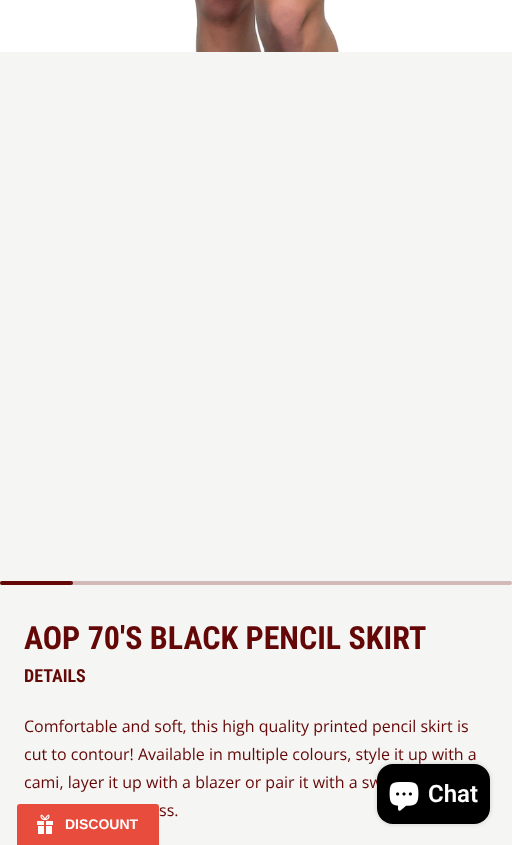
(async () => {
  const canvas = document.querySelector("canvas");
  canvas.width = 512;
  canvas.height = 845;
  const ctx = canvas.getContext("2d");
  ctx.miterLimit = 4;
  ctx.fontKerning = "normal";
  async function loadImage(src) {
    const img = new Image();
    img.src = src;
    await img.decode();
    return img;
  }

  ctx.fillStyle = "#f5f5f3";
  ctx.fillRect(0, 0, 512, 845);
  ctx.drawImage(await loadImage("img/1.png"), 0, 0, 511, 52);
  ctx.fillStyle = "#ffffff";
  ctx.fillRect(511, 0, 1, 52);
  ctx.fillStyle = "#d1bab8";
  ctx.beginPath();
  ctx.roundRect(0, 581, 512, 4, 2);
  ctx.fill();
  ctx.fillStyle = "#640707";
  ctx.beginPath();
  ctx.roundRect(0, 581, 73, 4, 2);
  ctx.fill();
  ctx.fillStyle = "rgba(0, 0, 0, 0.15)";
  ctx.filter = "blur(2.5px)";
  ctx.beginPath();
  ctx.roundRect(377, 764, 113, 60, 16);
  ctx.fill();
  ctx.filter = "none";
  ctx.fillStyle = "#e74c3c";
  ctx.beginPath();
  ctx.roundRect(17, 804, 142, 41, [3, 3, 0, 0]);
  ctx.fill();
  ctx.drawImage(await loadImage("img/3.png"), 37, 814, 16, 20);
  ctx.font = "bold 32px Roboto Condensed";
  ctx.fillStyle = "#640707";
  ctx.fillText("AOP 70'S BLACK PENCIL SKIRT", 24, 649);
  ctx.font = "bold 18px Roboto Condensed";
  ctx.fillText("DETAILS", 24, 682);
  ctx.font = "16px Open Sans";
  for (const [text, x, y] of [
    ["Comfortable and soft, this high quality printed pencil skirt is", 24, 732],
    ["cut to contour! Available in multiple colours, style it up with a", 24, 760],
    ["cami, layer it up with a blazer or pair it with a sw", 24, 788],
    ["ss.", 159, 816],
  ]) {
    ctx.fillText(text, x, y);
  }
  ctx.fillStyle = "#000000";
  ctx.beginPath();
  ctx.roundRect(377, 764, 113, 60, 16);
  ctx.fill();
  ctx.drawImage(await loadImage("img/2.png"), 389, 782, 30, 29);
  ctx.font = "600 24px Roboto";
  ctx.fillStyle = "#ffffff";
  ctx.fillText("Chat", 428, 802);
  ctx.font = "bold 14px Liberation Sans";
  ctx.fillText("DISCOUNT", 65, 829);
})();
